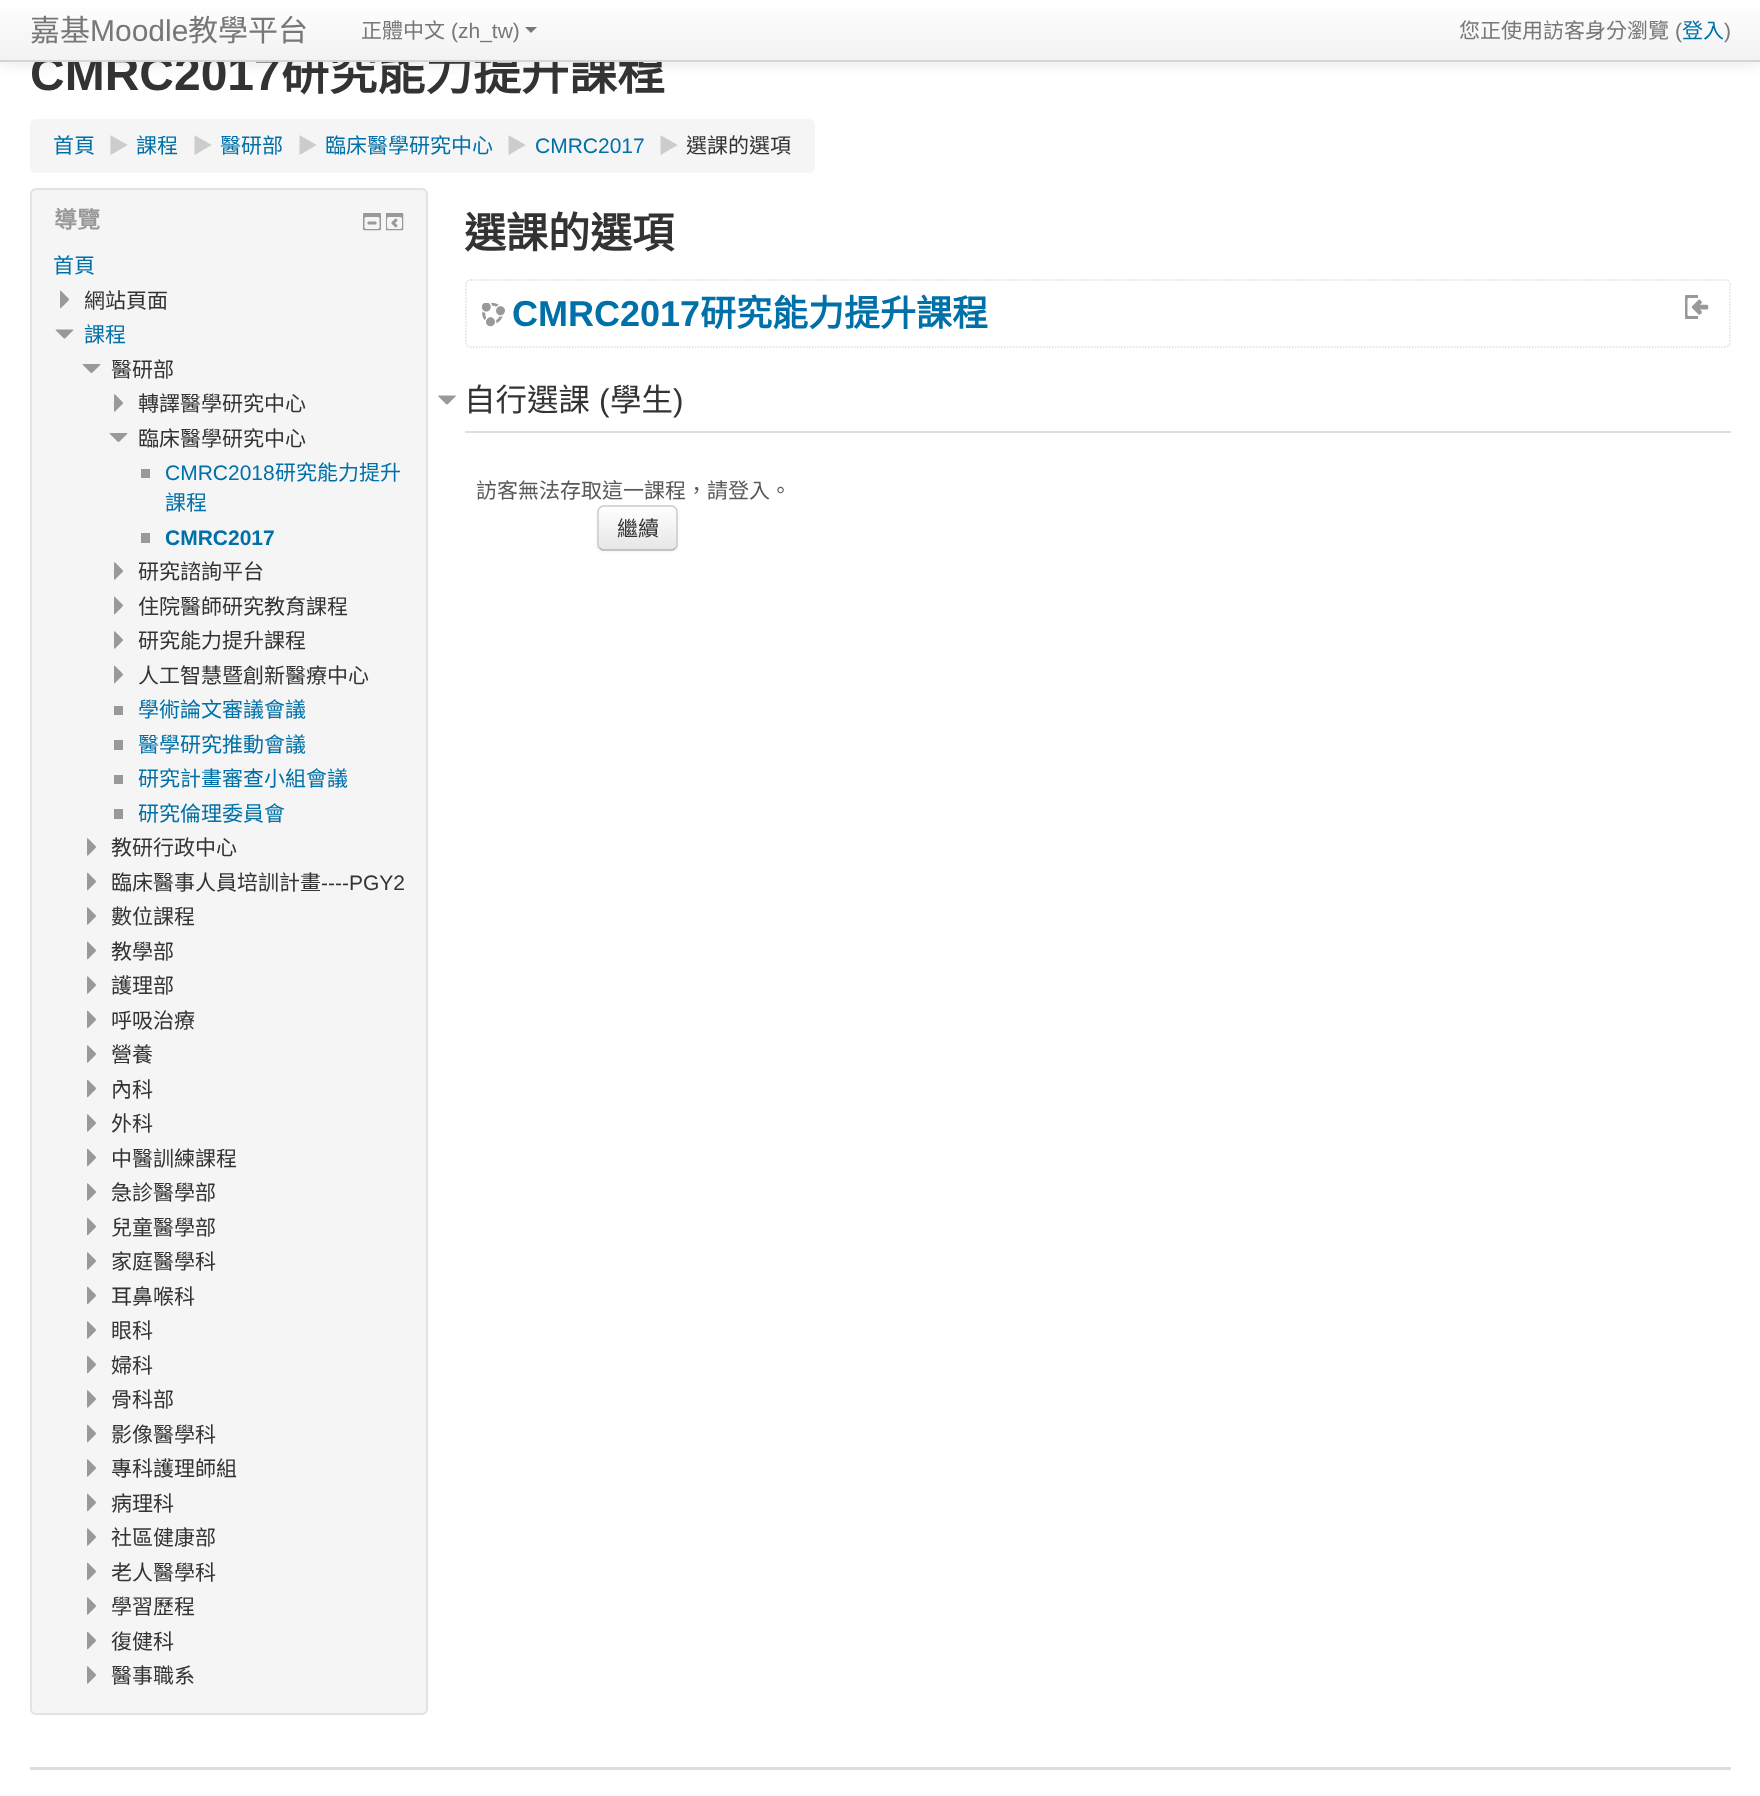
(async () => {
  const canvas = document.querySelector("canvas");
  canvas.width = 1760;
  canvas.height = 1796;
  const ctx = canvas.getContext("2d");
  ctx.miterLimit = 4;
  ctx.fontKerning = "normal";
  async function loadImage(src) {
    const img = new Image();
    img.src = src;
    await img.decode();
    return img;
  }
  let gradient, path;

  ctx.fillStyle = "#ffffff";
  ctx.fillRect(0, 0, 1760, 1796);
  ctx.fillStyle = "rgba(0, 0, 0, 0.1)";
  ctx.filter = "blur(7.5px)";
  ctx.beginPath();
  ctx.rect(0, 2, 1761, 61);
  ctx.fill();
  ctx.filter = "none";
  ctx.fillStyle = "#f5f5f5";
  ctx.beginPath();
  ctx.roundRect(30, 119, 785, 54, 6);
  ctx.fill();
  ctx.beginPath();
  ctx.roundRect(30, 188, 398, 1527, 6);
  ctx.fill();
  ctx.fillStyle = "#e9e9e9";
  path = new Path2D("M36 190H422C424 190 426 193 426 195V194C426 191 424 189 421 189H37C34 189 32 191 32 194V195C32 193 34 190 36 190Z");
  ctx.fill(path);
  ctx.beginPath();
  ctx.roundRect(31, 189, 396, 1525, 5);
  ctx.strokeStyle = "#e3e3e3";
  ctx.lineWidth = 2;
  ctx.stroke();
  ctx.drawImage(await loadImage("img/1.png"), 363, 213, 18, 18);
  ctx.drawImage(await loadImage("img/2.png"), 386, 213, 18, 18);
  ctx.drawImage(await loadImage("img/3.png"), 60, 290, 9, 19);
  ctx.drawImage(await loadImage("img/4.png"), 55, 329, 19, 10);
  ctx.drawImage(await loadImage("img/5.png"), 82, 364, 19, 9);
  ctx.drawImage(await loadImage("img/6.png"), 114, 394, 9, 18);
  ctx.drawImage(await loadImage("img/5.png"), 109, 433, 19, 9);
  ctx.fillStyle = "#999999";
  ctx.fillRect(141, 469, 9, 9);
  ctx.fillRect(141, 533, 9, 10);
  ctx.drawImage(await loadImage("img/6.png"), 114, 562, 9, 18);
  ctx.drawImage(await loadImage("img/3.png"), 114, 596, 9, 19);
  ctx.drawImage(await loadImage("img/6.png"), 114, 631, 9, 18);
  ctx.drawImage(await loadImage("img/7.png"), 114, 665, 9, 19);
  for (const [x, y, w, h, color] of [
    [114, 706, 9, 9, "#999999"],
    [114, 740, 9, 10, "#999999"],
    [114, 775, 9, 9, "#999999"],
    [114, 809, 9, 10, "#999999"],
  ]) {
    ctx.fillStyle = color;
    ctx.fillRect(x, y, w, h);
  }
  ctx.drawImage(await loadImage("img/6.png"), 87, 838, 9, 18);
  ctx.drawImage(await loadImage("img/3.png"), 87, 872, 9, 19);
  ctx.drawImage(await loadImage("img/6.png"), 87, 907, 9, 18);
  ctx.drawImage(await loadImage("img/3.png"), 87, 941, 9, 19);
  ctx.drawImage(await loadImage("img/6.png"), 87, 976, 9, 18);
  ctx.drawImage(await loadImage("img/3.png"), 87, 1010, 9, 19);
  ctx.drawImage(await loadImage("img/6.png"), 87, 1045, 9, 18);
  ctx.drawImage(await loadImage("img/3.png"), 87, 1079, 9, 19);
  ctx.drawImage(await loadImage("img/6.png"), 87, 1114, 9, 18);
  ctx.drawImage(await loadImage("img/3.png"), 87, 1148, 9, 19);
  ctx.drawImage(await loadImage("img/6.png"), 87, 1183, 9, 18);
  ctx.drawImage(await loadImage("img/3.png"), 87, 1217, 9, 19);
  ctx.drawImage(await loadImage("img/6.png"), 87, 1252, 9, 18);
  ctx.drawImage(await loadImage("img/3.png"), 87, 1286, 9, 19);
  ctx.drawImage(await loadImage("img/6.png"), 87, 1321, 9, 18);
  ctx.drawImage(await loadImage("img/3.png"), 87, 1355, 9, 19);
  ctx.drawImage(await loadImage("img/6.png"), 87, 1390, 9, 18);
  ctx.drawImage(await loadImage("img/8.png"), 87, 1424, 9, 19);
  ctx.drawImage(await loadImage("img/6.png"), 87, 1459, 9, 18);
  ctx.drawImage(await loadImage("img/3.png"), 87, 1493, 9, 19);
  ctx.drawImage(await loadImage("img/6.png"), 87, 1528, 9, 18);
  ctx.drawImage(await loadImage("img/3.png"), 87, 1562, 9, 19);
  ctx.drawImage(await loadImage("img/6.png"), 87, 1597, 9, 18);
  ctx.drawImage(await loadImage("img/3.png"), 87, 1631, 9, 19);
  ctx.drawImage(await loadImage("img/6.png"), 87, 1666, 9, 18);
  path = new Path2D("M471 280H1725C1728 280 1730 282 1730 285V342C1730 345 1728 347 1725 347H471C468 347 466 345 466 342V285C466 282 468 280 471 280Z");
  ctx.strokeStyle = "#dddddd";
  ctx.lineWidth = 1.5;
  ctx.setLineDash([1.5, 1.5]);
  ctx.stroke(path);
  ctx.drawImage(await loadImage("img/9.png"), 482, 303, 23, 24);
  ctx.drawImage(await loadImage("img/10.png"), 1685, 295, 24, 24);
  ctx.fillStyle = "#dddddd";
  ctx.fillRect(465, 431, 1266, 2);
  ctx.drawImage(await loadImage("img/11.png"), 438, 395, 18, 10);
  ctx.fillStyle = "rgba(0, 0, 0, 0.05)";
  ctx.filter = "blur(1.5px)";
  ctx.beginPath();
  ctx.roundRect(597, 507, 81, 45, 6);
  ctx.fill();
  ctx.filter = "none";
  ctx.fillStyle = "#f5f5f5";
  ctx.beginPath();
  ctx.roundRect(597, 506, 81, 45, 6);
  ctx.fill();
  ctx.save();
  ctx.beginPath();
  ctx.roundRect(597, 506, 81, 45, 6);
  ctx.clip();
  gradient = ctx.createLinearGradient(638, 507, 638, 549);
  gradient.addColorStop(0, "#ffffff");
  gradient.addColorStop(1, "#e6e6e6");
  ctx.fillStyle = gradient;
  ctx.fillRect(597, 507, 81, 42);
  ctx.restore();
  ctx.fillStyle = "rgba(255, 255, 255, 0.2)";
  path = new Path2D("M603 508H660C665 508 674 505 676 512V547C677 546 677 545 677 544V512C677 509 675 507 672 507H604C602 507 600 508 599 510C600 509 602 508 603 508Z");
  ctx.fill(path);
  path = new Path2D("M675.5 548C674.5 549 673.5 550 672 550H603C601.5 550 600.5 549 599.5 548");
  ctx.strokeStyle = "#b3b3b3";
  ctx.setLineDash([]);
  ctx.stroke(path);
  path = new Path2D("M599.5 548C598.5 547 598 546 598 544.5V511.5C598 510 598.5 509 599.5 508C600.5 507 601.5 506 603 506H672C673.5 506 674.5 507 675.5 508C676.5 509 677 510 677 511.5V544.5C677 546 676.5 547 675.5 548");
  ctx.strokeStyle = "#cccccc";
  ctx.stroke(path);
  ctx.fillStyle = "#dddddd";
  ctx.fillRect(30, 1767, 1701, 3);
  ctx.font = "bold 48px Liberation Sans";
  ctx.fillStyle = "#333333";
  ctx.fillText("CMRC2017", 30, 90);
  ctx.font = "bold 48px Noto Sans CJK TC";
  ctx.fillText("研究能力提升課程", 281, 90);
  gradient = ctx.createLinearGradient(881, 0, 881, 60);
  gradient.addColorStop(0, "#ffffff");
  gradient.addColorStop(1, "#f2f2f2");
  ctx.fillStyle = gradient;
  ctx.fillRect(0, 0, 1760, 60);
  ctx.fillStyle = "#777777";
  path = new Path2D("M525 27H537L531 33Z");
  ctx.fill(path);
  ctx.font = "21px Liberation Sans";
  ctx.fillText("(zh_tw)", 451, 38);
  ctx.font = "21px Noto Sans CJK TC";
  ctx.fillText("正體中文", 361, 38);
  ctx.font = "21px Liberation Sans";
  ctx.fillText(")", 1724, 38);
  ctx.font = "21px Noto Sans CJK TC";
  ctx.fillStyle = "#0070a8";
  ctx.fillText("登入", 1682, 38);
  ctx.font = "21px Liberation Sans";
  ctx.fillStyle = "#777777";
  ctx.fillText("(", 1675, 38);
  ctx.font = "21px Noto Sans CJK TC";
  ctx.fillText("您正使用訪客身分瀏覽", 1459, 38);
  ctx.font = "30px Noto Sans CJK TC";
  ctx.fillText("教學平台", 188, 41);
  ctx.font = "30px Liberation Sans";
  ctx.fillText("Moodle", 90, 41);
  ctx.font = "30px Noto Sans CJK TC";
  ctx.fillText("嘉基", 30, 41);
  ctx.fillStyle = "#d4d4d4";
  ctx.fillRect(0, 60, 1760, 2);
  ctx.font = "21px Noto Sans CJK TC";
  ctx.fillStyle = "#0070a8";
  ctx.fillText("首頁", 53, 153);
  ctx.fillStyle = "#cccccc";
  ctx.fillText("▶︎", 108, 153);
  ctx.fillStyle = "#0070a8";
  ctx.fillText("課程", 136, 153);
  ctx.fillStyle = "#cccccc";
  ctx.fillText("▶︎", 192, 153);
  ctx.fillStyle = "#0070a8";
  ctx.fillText("醫研部", 220, 153);
  ctx.fillStyle = "#cccccc";
  ctx.fillText("▶︎", 297, 153);
  ctx.fillStyle = "#0070a8";
  ctx.fillText("臨床醫學研究中心", 325, 153);
  ctx.fillStyle = "#cccccc";
  ctx.fillText("▶︎", 506, 153);
  ctx.font = "21px Liberation Sans";
  ctx.fillStyle = "#0070a8";
  ctx.fillText("CMRC2017", 535, 153);
  ctx.font = "21px Noto Sans CJK TC";
  ctx.fillStyle = "#cccccc";
  ctx.fillText("▶︎", 658, 153);
  ctx.fillStyle = "#333333";
  ctx.fillText("選課的選項", 686, 153);
  ctx.font = "bold 23px Noto Sans CJK TC";
  ctx.fillStyle = "#999999";
  ctx.fillText("導覽", 54, 228);
  ctx.font = "21px Noto Sans CJK TC";
  ctx.fillStyle = "#0070a8";
  ctx.fillText("首頁", 53, 273);
  ctx.fillStyle = "#333333";
  ctx.fillText("網站頁面", 84, 308);
  ctx.fillStyle = "#0070a8";
  ctx.fillText("課程", 84, 342);
  ctx.fillStyle = "#333333";
  for (const [text, x, y] of [
    ["醫研部", 111, 377],
    ["轉譯醫學研究中心", 138, 411],
    ["臨床醫學研究中心", 138, 446],
  ]) {
    ctx.fillText(text, x, y);
  }
  ctx.font = "21px Liberation Sans";
  ctx.fillStyle = "#0070a8";
  ctx.fillText("CMRC2018", 165, 480);
  ctx.font = "21px Noto Sans CJK TC";
  ctx.fillText("研究能力提升", 275, 480);
  ctx.fillText("課程", 165, 510);
  ctx.font = "bold 21px Liberation Sans";
  ctx.fillText("CMRC2017", 165, 545);
  ctx.font = "21px Noto Sans CJK TC";
  ctx.fillStyle = "#333333";
  for (const [text, x, y] of [
    ["研究諮詢平台", 138, 579],
    ["住院醫師研究教育課程", 138, 614],
    ["研究能力提升課程", 138, 648],
    ["人工智慧暨創新醫療中心", 138, 683],
  ]) {
    ctx.fillText(text, x, y);
  }
  ctx.fillStyle = "#0070a8";
  for (const [text, x, y] of [
    ["學術論文審議會議", 138, 717],
    ["醫學研究推動會議", 138, 752],
    ["研究計畫審查小組會議", 138, 786],
    ["研究倫理委員會", 138, 821],
  ]) {
    ctx.fillText(text, x, y);
  }
  ctx.fillStyle = "#333333";
  ctx.fillText("教研行政中心", 111, 855);
  ctx.fillText("臨床醫事人員培訓計畫", 111, 890);
  ctx.font = "21px Liberation Sans";
  ctx.fillText("----PGY2", 321, 890);
  ctx.font = "21px Noto Sans CJK TC";
  for (const [text, x, y] of [
    ["數位課程", 111, 924],
    ["教學部", 111, 959],
    ["護理部", 111, 993],
    ["呼吸治療", 111, 1028],
    ["營養", 111, 1062],
    ["內科", 111, 1097],
    ["外科", 111, 1131],
    ["中醫訓練課程", 111, 1166],
    ["急診醫學部", 111, 1200],
    ["兒童醫學部", 111, 1235],
    ["家庭醫學科", 111, 1269],
    ["耳鼻喉科", 111, 1304],
    ["眼科", 111, 1338],
    ["婦科", 111, 1373],
    ["骨科部", 111, 1407],
    ["影像醫學科", 111, 1442],
    ["專科護理師組", 111, 1476],
    ["病理科", 111, 1511],
    ["社區健康部", 111, 1545],
    ["老人醫學科", 111, 1580],
    ["學習歷程", 111, 1614],
    ["復健科", 111, 1649],
    ["醫事職系", 111, 1683],
  ]) {
    ctx.fillText(text, x, y);
  }
  ctx.font = "bold 42px Noto Sans CJK TC";
  ctx.fillText("選課的選項", 464, 248);
  ctx.font = "bold 36px Liberation Sans";
  ctx.fillStyle = "#0070a8";
  ctx.fillText("CMRC2017", 512, 326);
  ctx.font = "bold 36px Noto Sans CJK TC";
  ctx.fillText("研究能力提升課程", 700, 326);
  ctx.font = "31.5px Noto Sans CJK TC";
  ctx.fillStyle = "#333333";
  ctx.fillText("自行選課", 464, 411);
  ctx.font = "31.5px Liberation Sans";
  ctx.fillText("(", 599, 411);
  ctx.font = "31.5px Noto Sans CJK TC";
  ctx.fillText("學生", 610, 411);
  ctx.font = "31.5px Liberation Sans";
  ctx.fillText(")", 673, 411);
  ctx.font = "21px Noto Sans CJK TC";
  ctx.fillStyle = "#595959";
  ctx.fillText("訪客無法存取這一課程，請登入。", 476, 498);
  ctx.fillStyle = "#333333";
  ctx.fillText("繼續", 617, 536);
})();
